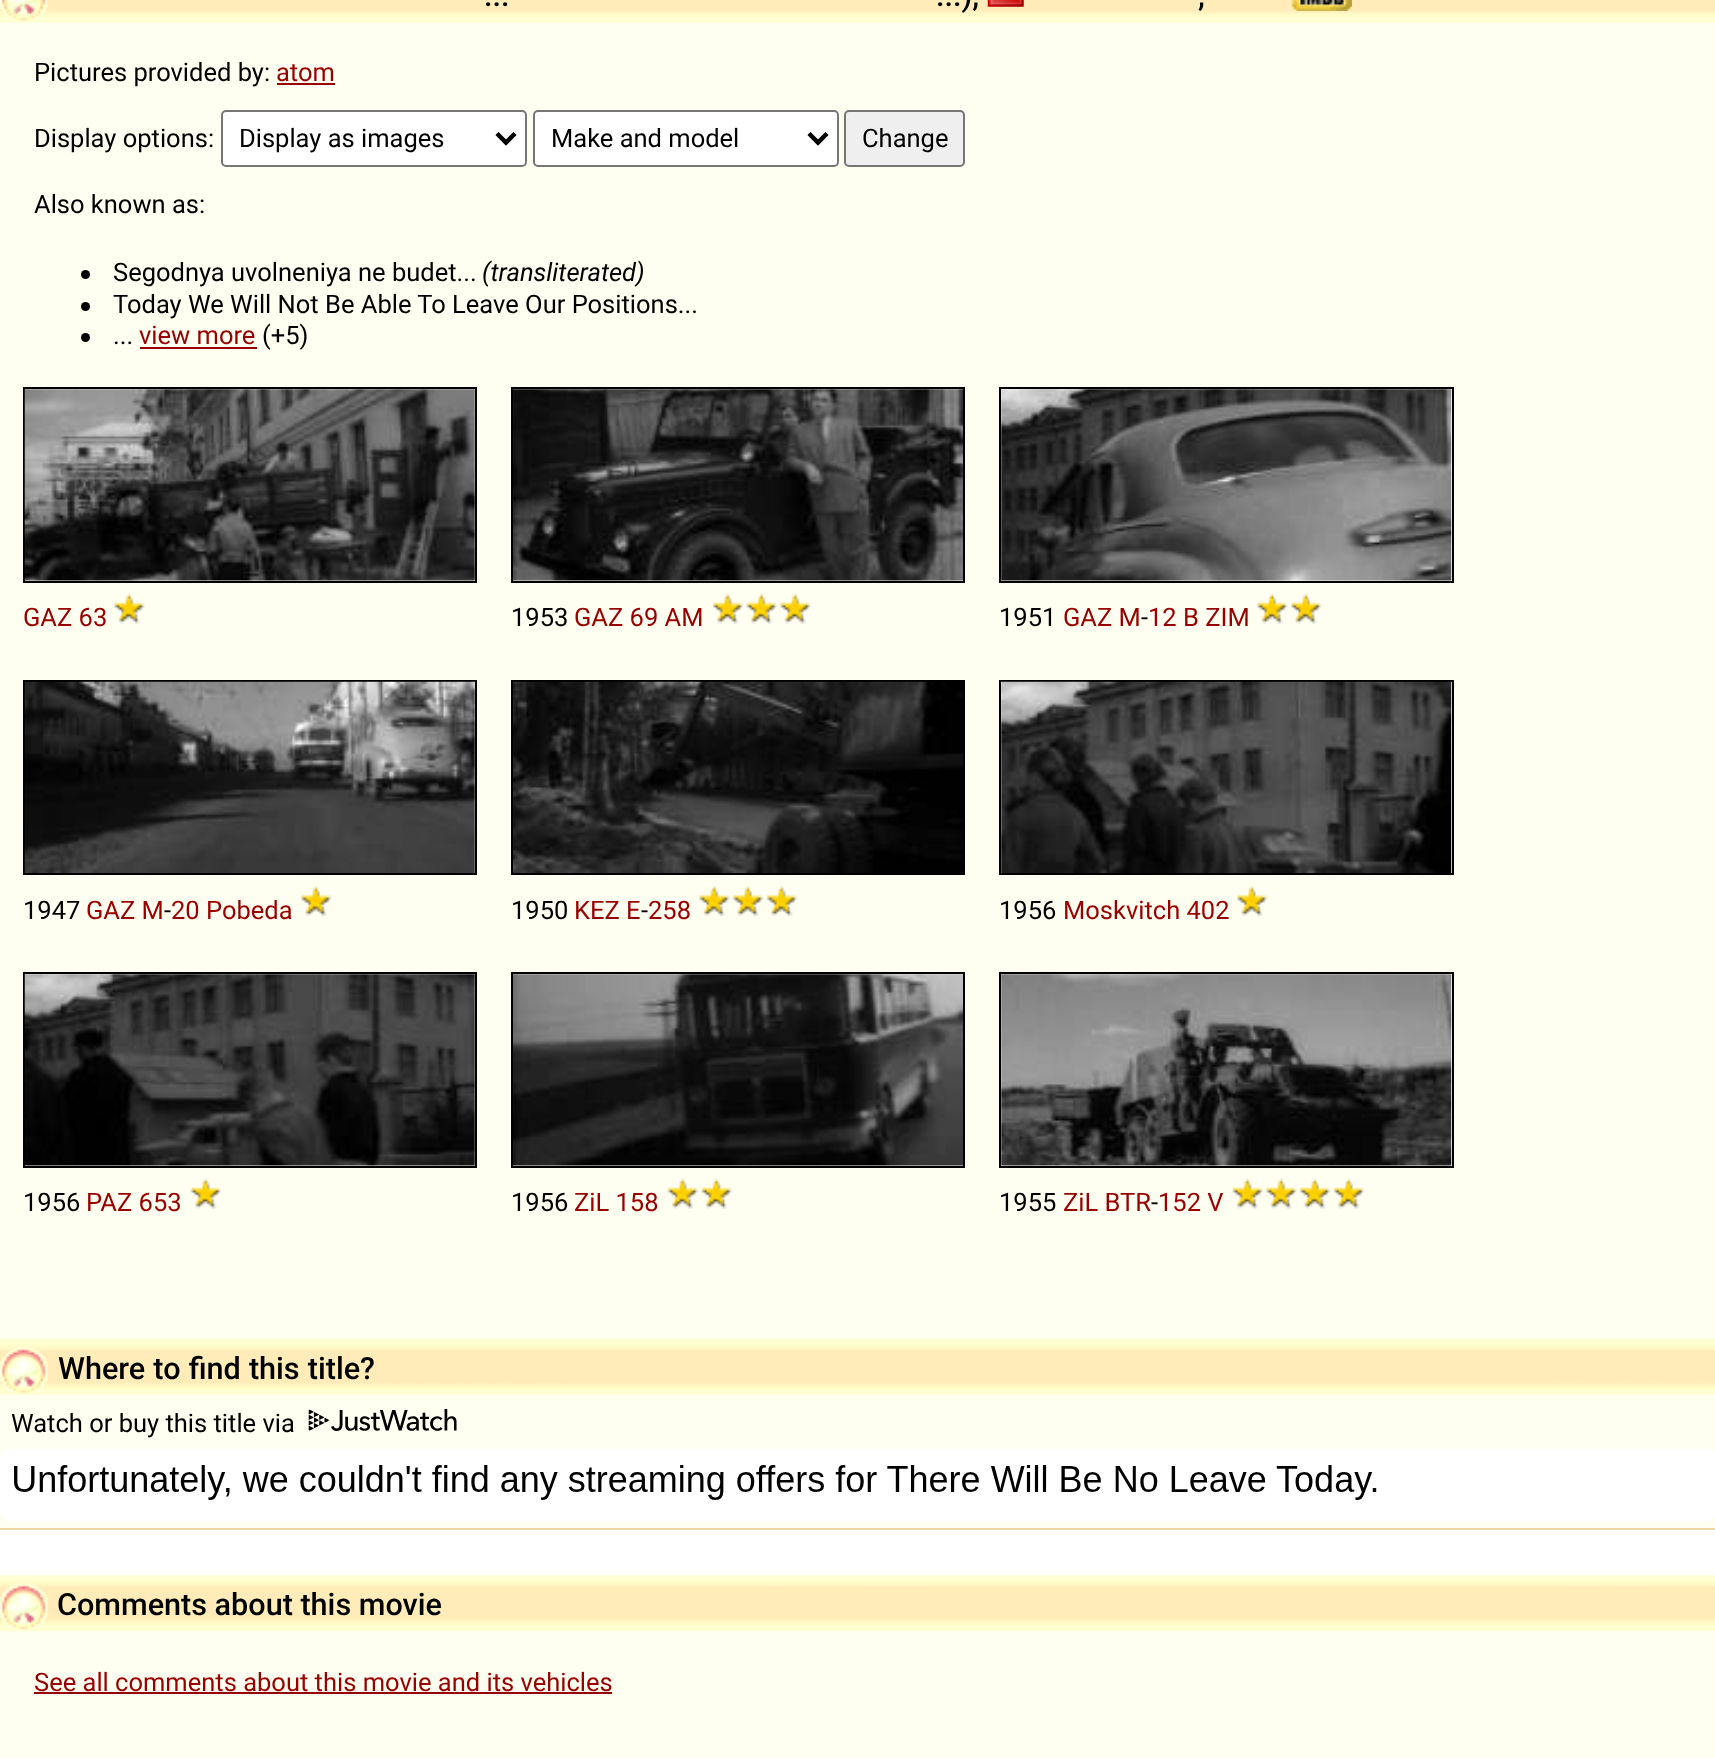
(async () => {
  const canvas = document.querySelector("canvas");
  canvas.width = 1715;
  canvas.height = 1758;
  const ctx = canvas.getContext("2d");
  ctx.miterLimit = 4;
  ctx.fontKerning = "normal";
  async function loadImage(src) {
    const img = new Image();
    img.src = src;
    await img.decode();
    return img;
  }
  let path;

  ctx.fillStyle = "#ffffff";
  ctx.fillRect(0, 0, 1715, 1758);
  for (const [x, y, w, h, color] of [
    [0, 23, 1715, 1505, "#fffff1"],
    [0, 1528, 1715, 2, "#efd6a3"],
    [0, 19, 1715, 4, "#ffffd7"],
  ]) {
    ctx.fillStyle = color;
    ctx.fillRect(x, y, w, h);
  }
  ctx.drawImage(await loadImage("img/1.png"), 0, 0, 1715, 19);
  ctx.drawImage(await loadImage("img/2.png"), 0, 0, 48, 21);
  ctx.drawImage(await loadImage("img/3.png"), 987, 0, 37, 7);
  ctx.drawImage(await loadImage("img/4.png"), 1291, 0, 62, 12);
  ctx.fillStyle = "#990000";
  ctx.fillRect(277, 83, 58, 2);
  ctx.fillStyle = "#ffffff";
  ctx.beginPath();
  ctx.roundRect(222, 111, 304, 55, 4);
  ctx.fill();
  ctx.strokeStyle = "#767676";
  ctx.lineWidth = 2;
  ctx.stroke();
  path = new Path2D("M497 133.5L506 142.5L515 133.5");
  ctx.strokeStyle = "#000000";
  ctx.lineWidth = 4.5;
  ctx.stroke(path);
  ctx.beginPath();
  ctx.roundRect(534, 111, 304, 55, 4);
  ctx.fill();
  ctx.strokeStyle = "#767676";
  ctx.lineWidth = 2;
  ctx.stroke();
  path = new Path2D("M809 133.5L818 142.5L827 133.5");
  ctx.strokeStyle = "#000000";
  ctx.lineWidth = 4.5;
  ctx.stroke(path);
  ctx.fillStyle = "#efefef";
  ctx.beginPath();
  ctx.roundRect(845, 111, 119, 55, 4);
  ctx.fill();
  ctx.strokeStyle = "#767676";
  ctx.lineWidth = 2;
  ctx.stroke();
  ctx.fillStyle = "#000000";
  ctx.beginPath();
  ctx.arc(85.5, 274.5, 4.5, 0, Math.PI * 2);
  ctx.fill();
  ctx.beginPath();
  ctx.arc(85.5, 306.5, 4.5, 0, Math.PI * 2);
  ctx.fill();
  ctx.beginPath();
  ctx.arc(85.5, 337.5, 4.5, 0, Math.PI * 2);
  ctx.fill();
  ctx.fillStyle = "#990000";
  ctx.fillRect(140, 347, 117, 2);
  ctx.strokeStyle = "#000000";
  ctx.strokeRect(24, 388, 452, 194);
  ctx.drawImage(await loadImage("img/5.png"), 24, 389, 451, 192);
  ctx.drawImage(await loadImage("img/6.png"), 114, 593, 31, 31);
  ctx.strokeRect(512, 388, 452, 194);
  ctx.drawImage(await loadImage("img/7.png"), 513, 389, 450, 192);
  ctx.drawImage(await loadImage("img/8.png"), 712, 593, 31, 31);
  ctx.drawImage(await loadImage("img/9.png"), 746, 593, 31, 31);
  ctx.drawImage(await loadImage("img/10.png"), 780, 593, 31, 31);
  ctx.strokeRect(1000, 388, 453, 194);
  ctx.drawImage(await loadImage("img/11.png"), 1001, 389, 451, 192);
  ctx.drawImage(await loadImage("img/6.png"), 1257, 593, 31, 31);
  ctx.drawImage(await loadImage("img/12.png"), 1291, 593, 31, 31);
  ctx.strokeRect(24, 681, 452, 193);
  ctx.drawImage(await loadImage("img/13.png"), 24, 681, 451, 192);
  ctx.drawImage(await loadImage("img/14.png"), 301, 886, 31, 31);
  ctx.strokeRect(512, 681, 452, 193);
  ctx.drawImage(await loadImage("img/15.png"), 513, 681, 450, 192);
  ctx.drawImage(await loadImage("img/16.png"), 699, 886, 31, 31);
  ctx.drawImage(await loadImage("img/17.png"), 733, 886, 31, 31);
  ctx.drawImage(await loadImage("img/18.png"), 766, 886, 31, 31);
  ctx.strokeRect(1000, 681, 453, 193);
  ctx.drawImage(await loadImage("img/19.png"), 1001, 681, 451, 192);
  ctx.drawImage(await loadImage("img/17.png"), 1237, 886, 31, 31);
  ctx.strokeRect(24, 973, 452, 194);
  ctx.drawImage(await loadImage("img/20.png"), 24, 974, 451, 192);
  ctx.drawImage(await loadImage("img/8.png"), 190, 1178, 31, 31);
  ctx.strokeRect(512, 973, 452, 194);
  ctx.drawImage(await loadImage("img/21.png"), 513, 974, 450, 192);
  ctx.drawImage(await loadImage("img/8.png"), 667, 1178, 31, 31);
  ctx.drawImage(await loadImage("img/22.png"), 701, 1178, 31, 31);
  ctx.strokeRect(1000, 973, 453, 194);
  ctx.drawImage(await loadImage("img/23.png"), 1001, 974, 451, 192);
  ctx.drawImage(await loadImage("img/22.png"), 1232, 1178, 31, 31);
  ctx.drawImage(await loadImage("img/6.png"), 1266, 1178, 31, 31);
  ctx.drawImage(await loadImage("img/12.png"), 1300, 1178, 31, 31);
  ctx.drawImage(await loadImage("img/24.png"), 1333, 1178, 31, 31);
  ctx.fillStyle = "#ffffd7";
  ctx.fillRect(0, 1391, 1715, 4);
  ctx.drawImage(await loadImage("img/25.png"), 0, 1338, 1715, 53);
  ctx.drawImage(await loadImage("img/26.png"), 0, 1347, 48, 47);
  ctx.drawImage(await loadImage("img/27.png"), 308, 1409, 149, 22);
  ctx.drawImage(await loadImage("img/28.png"), 0, 1449, 1715, 72);
  ctx.fillStyle = "#fffff1";
  ctx.fillRect(0, 1631, 1715, 127);
  ctx.fillStyle = "#ffffd7";
  ctx.fillRect(0, 1575, 1715, 4);
  ctx.drawImage(await loadImage("img/29.png"), 0, 1579, 1715, 53);
  ctx.drawImage(await loadImage("img/30.png"), 0, 1583, 48, 47);
  ctx.fillStyle = "#990000";
  ctx.fillRect(34, 1692, 578, 2);
  ctx.font = "500 30.6px Roboto";
  ctx.fillStyle = "#000000";
  ctx.fillText("...", 484, 6);
  ctx.fillText("...),", 936, 6);
  ctx.wordSpacing = "1px";
  ctx.fillText(",", 1198, 6);
  ctx.wordSpacing = "0px";
  ctx.font = "25.5px Roboto";
  ctx.fillText("Pictures provided by:", 34, 81);
  ctx.fillStyle = "#990000";
  ctx.fillText("atom", 276, 81);
  ctx.fillStyle = "#000000";
  for (const [text, x, y] of [
    ["Display options:", 34, 147],
    ["Display as images", 239, 147],
    ["Make and model", 551, 147],
    ["Change", 862, 147],
    ["Also known as:", 34, 213],
    ["Segodnya uvolneniya ne budet...", 113, 281],
  ]) {
    ctx.fillText(text, x, y);
  }
  ctx.font = "italic 25.5px Roboto";
  ctx.fillText("(transliterated)", 482, 281);
  ctx.font = "25.5px Roboto";
  ctx.fillText("Today We Will Not Be Able To Leave Our Positions...", 113, 313);
  ctx.fillStyle = "#990000";
  ctx.fillText("view more", 139, 344);
  ctx.fillStyle = "#000000";
  ctx.fillText("(+5)", 262, 344);
  ctx.fillText("...", 113, 344);
  ctx.fillStyle = "#990000";
  ctx.fillText("GAZ 63", 23, 626);
  ctx.fillStyle = "#000000";
  ctx.fillText("1953", 511, 626);
  ctx.fillStyle = "#990000";
  ctx.fillText("GAZ 69 AM", 574, 626);
  ctx.fillStyle = "#000000";
  ctx.fillText("1951", 999, 626);
  ctx.fillStyle = "#990000";
  ctx.fillText("GAZ M", 1063, 626);
  ctx.fillStyle = "#000000";
  ctx.fillText("-", 1141, 626);
  ctx.fillStyle = "#990000";
  ctx.fillText("12 B ZIM", 1148, 626);
  ctx.fillStyle = "#000000";
  ctx.fillText("1947", 23, 919);
  ctx.fillStyle = "#990000";
  ctx.fillText("GAZ M", 86, 919);
  ctx.fillStyle = "#000000";
  ctx.fillText("-", 164, 919);
  ctx.fillStyle = "#990000";
  ctx.fillText("20 Pobeda", 171, 919);
  ctx.fillStyle = "#000000";
  ctx.fillText("1950", 511, 919);
  ctx.fillStyle = "#990000";
  ctx.fillText("KEZ E", 574, 919);
  ctx.fillStyle = "#000000";
  ctx.fillText("-", 641, 919);
  ctx.fillStyle = "#990000";
  ctx.fillText("258", 648, 919);
  ctx.fillStyle = "#000000";
  ctx.fillText("1956", 999, 919);
  ctx.fillStyle = "#990000";
  ctx.fillText("Moskvitch 402", 1063, 919);
  ctx.fillStyle = "#000000";
  ctx.fillText("1956", 23, 1211);
  ctx.fillStyle = "#990000";
  ctx.fillText("PAZ 653", 86, 1211);
  ctx.fillStyle = "#000000";
  ctx.fillText("1956", 511, 1211);
  ctx.fillStyle = "#990000";
  ctx.fillText("ZiL 158", 574, 1211);
  ctx.fillStyle = "#000000";
  ctx.fillText("1955", 999, 1211);
  ctx.fillStyle = "#990000";
  ctx.fillText("ZiL BTR", 1063, 1211);
  ctx.fillStyle = "#000000";
  ctx.fillText("-", 1151, 1211);
  ctx.fillStyle = "#990000";
  ctx.fillText("152 V", 1158, 1211);
  ctx.wordSpacing = "0.5px";
  ctx.font = "500 30.6px Roboto";
  ctx.fillStyle = "#000000";
  ctx.fillText("Where to find this title?", 58, 1379);
  ctx.wordSpacing = "0px";
  ctx.font = "25.5px Roboto";
  ctx.fillText("Watch or buy this title via", 11, 1432);
  ctx.font = "500 30.6px Roboto";
  ctx.fillText("Comments about this movie", 57, 1615);
  ctx.font = "25.5px Roboto";
  ctx.fillStyle = "#990000";
  ctx.fillText("See all comments about this movie and its vehicles", 34, 1691);
})();
